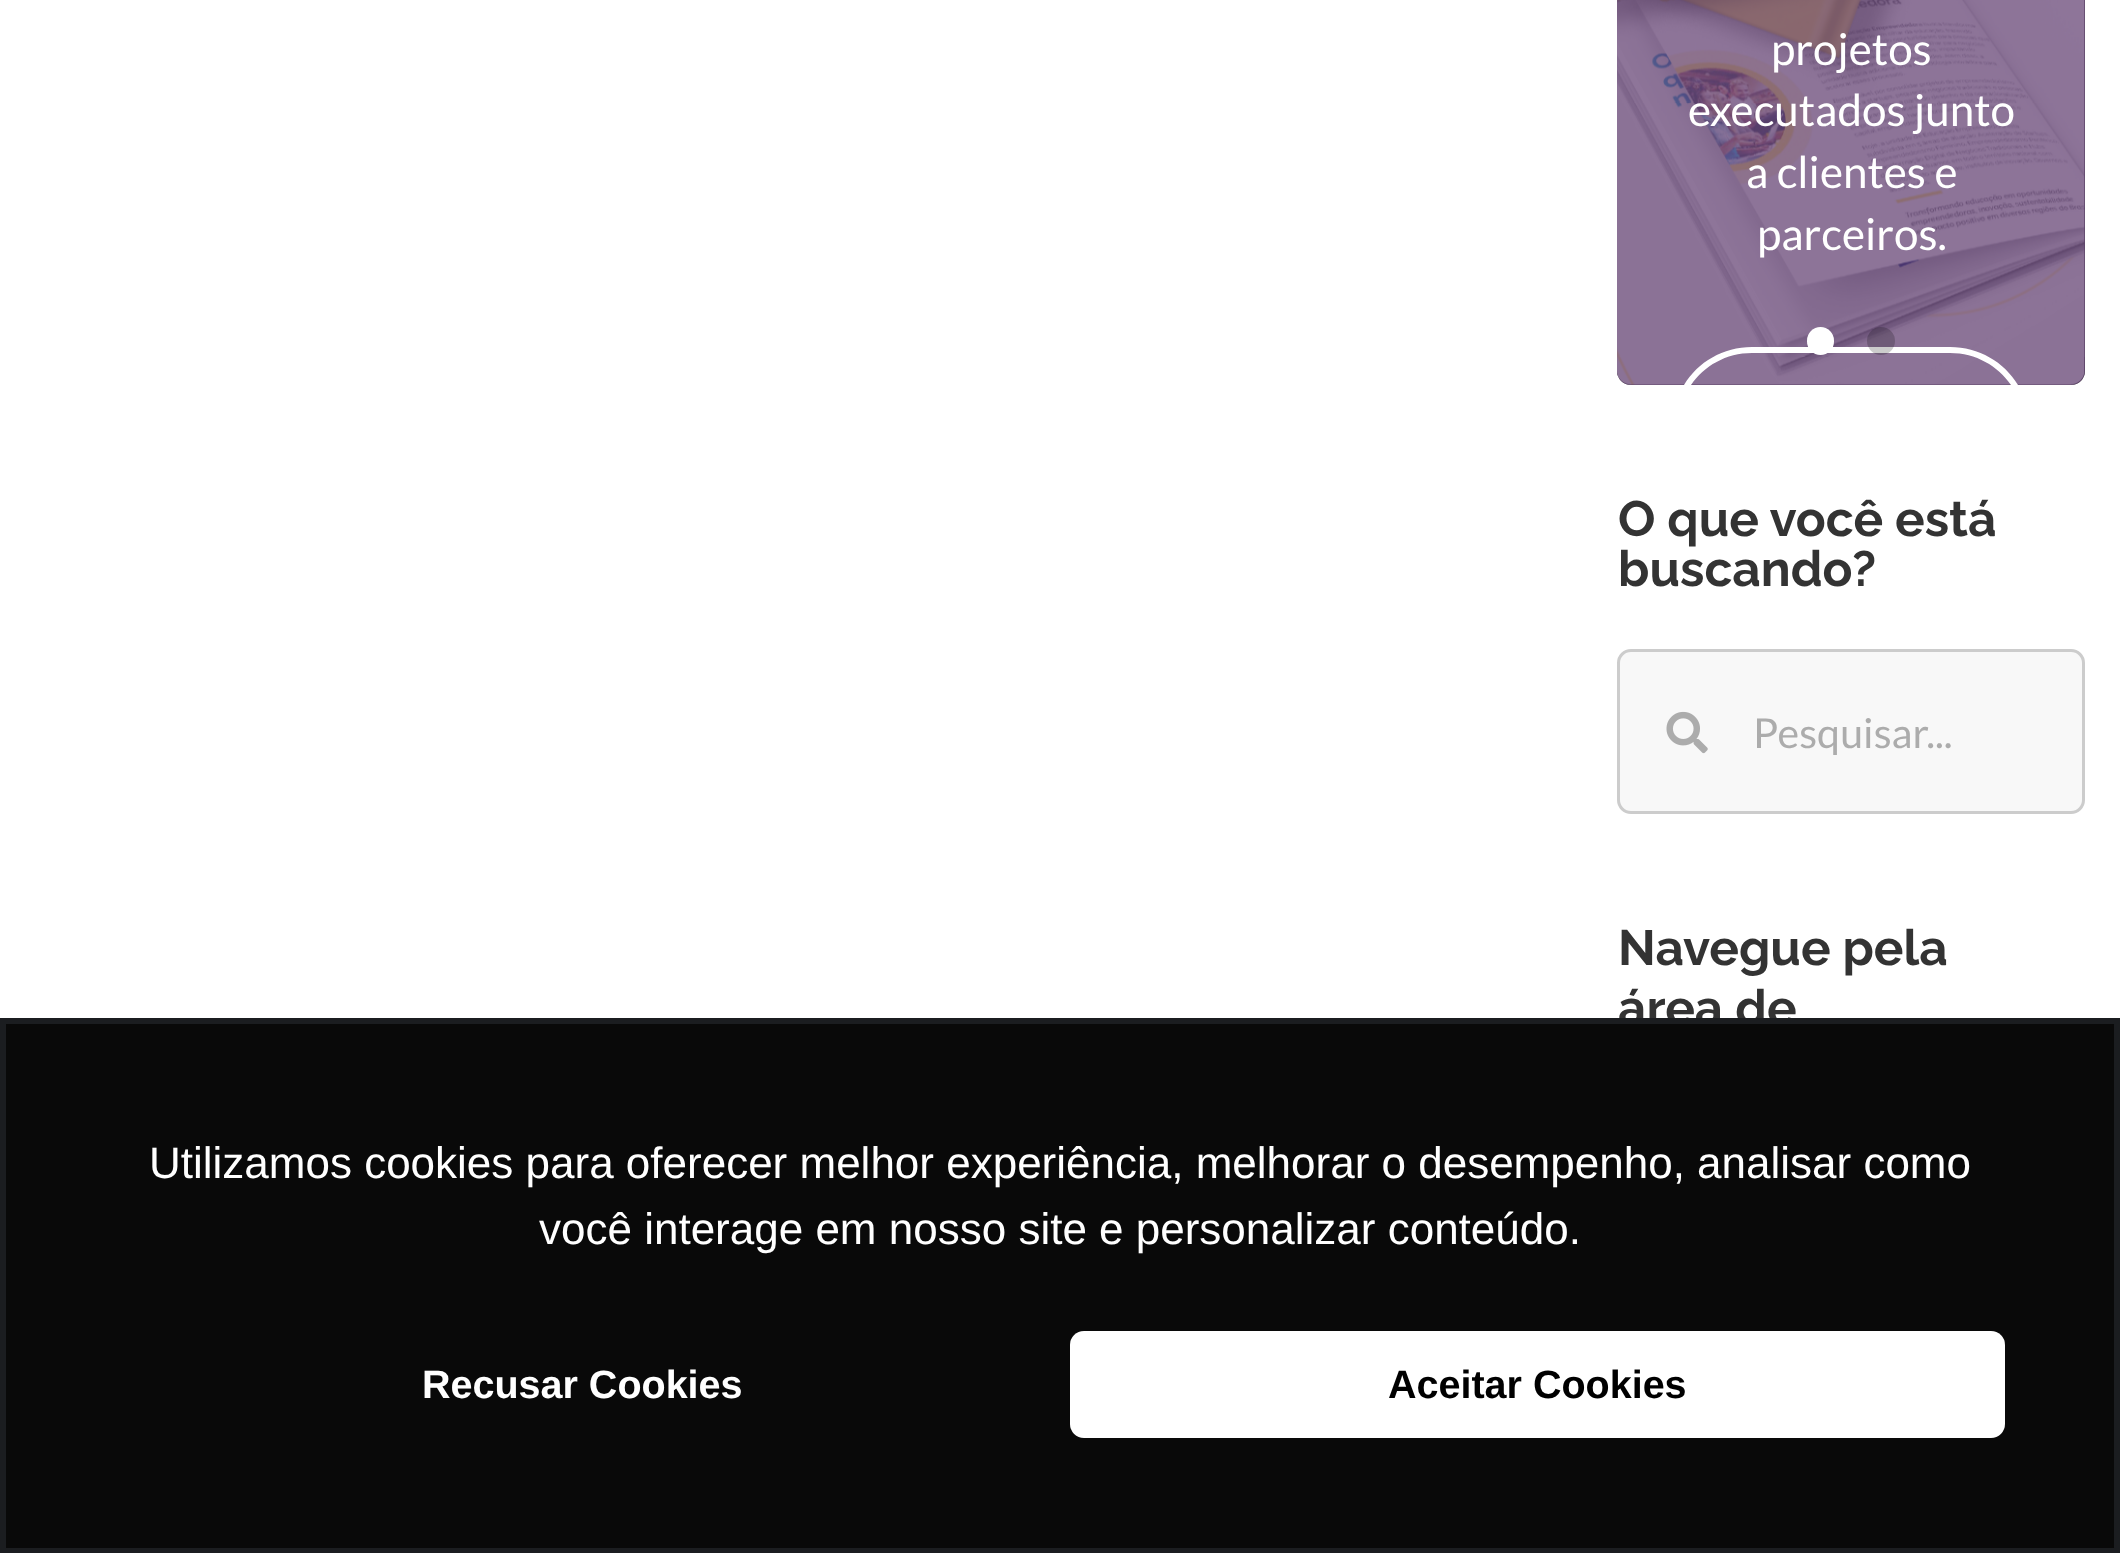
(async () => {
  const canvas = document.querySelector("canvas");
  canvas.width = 2120;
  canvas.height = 1553;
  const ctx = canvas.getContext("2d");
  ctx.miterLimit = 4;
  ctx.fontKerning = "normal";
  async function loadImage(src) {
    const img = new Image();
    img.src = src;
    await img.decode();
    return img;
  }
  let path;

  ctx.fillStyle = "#ffffff";
  ctx.fillRect(0, 0, 2120, 1553);
  ctx.drawImage(await loadImage("img/2.png"), 1617, 371, 1, 1);
  ctx.fillStyle = "#424242";
  ctx.beginPath();
  ctx.roundRect(1617, -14, 468, 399, 14);
  ctx.fill();
  ctx.drawImage(await loadImage("img/1.png"), 1617, 0, 468, 385);
  ctx.fillStyle = "rgba(101, 67, 116, 0.73)";
  ctx.beginPath();
  ctx.roundRect(1617, -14, 468, 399, 14);
  ctx.fill();
  ctx.fillStyle = "#ffffff";
  path = new Path2D("M1752 347C1723 347 1698 362 1684 385H1691C1704 366 1726 353 1752 353H1950C1976 353 1998 366 2011 385H2018C2004 362 1979 347 1950 347Z");
  ctx.fill(path);
  ctx.beginPath();
  ctx.roundRect(1807, 327, 27, 28, 13.5);
  ctx.fill();
  ctx.fillStyle = "rgba(0, 0, 0, 0.2)";
  ctx.beginPath();
  ctx.arc(1881, 341, 14, 0, Math.PI * 2);
  ctx.fill();
  ctx.fillStyle = "#f8f8f8";
  ctx.beginPath();
  ctx.roundRect(1618.5, 650.5, 465, 162, 12.5);
  ctx.fill();
  ctx.strokeStyle = "#cccccc";
  ctx.lineWidth = 3;
  ctx.stroke();
  ctx.drawImage(await loadImage("img/3.png"), 1666, 711, 42, 43);
  ctx.font = "44px Lato";
  ctx.fillStyle = "#ffffff";
  for (const [text, x, y] of [
    ["projetos", 1771, 65],
    ["executados junto", 1688, 126],
    ["a clientes e", 1746, 188],
    ["parceiros.", 1757, 250],
  ]) {
    ctx.fillText(text, x, y);
  }
  ctx.font = "bold 49.5px Raleway";
  ctx.fillStyle = "#333333";
  ctx.fillText("O que você está", 1618, 536);
  ctx.fillText("buscando?", 1618, 586);
  ctx.font = "41.25px Lato";
  ctx.fillStyle = "#acacac";
  ctx.fillText("Pesquisar...", 1753, 748);
  ctx.font = "bold 49.5px Raleway";
  ctx.fillStyle = "#333333";
  ctx.fillText("Navegue pela", 1618, 965);
  ctx.fillText("área de", 1618, 1025);
  ctx.fillStyle = "#090909";
  ctx.beginPath();
  ctx.rect(3, 1021, 2114, 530);
  ctx.fill();
  ctx.strokeStyle = "#1b1d20";
  ctx.lineWidth = 6;
  ctx.stroke();
  ctx.font = "44px Liberation Sans";
  ctx.fillStyle = "#ffffff";
  ctx.fillText("Utilizamos cookies para oferecer melhor experiência, melhorar o desempenho, analisar como", 149, 1178);
  ctx.fillText("você interage em nosso site e personalizar conteúdo.", 539, 1244);
  ctx.font = "bold 39.5px Liberation Sans";
  ctx.fillText("Recusar Cookies", 422, 1398);
  ctx.beginPath();
  ctx.roundRect(1070, 1331, 935, 107, 14);
  ctx.fill();
  ctx.fillStyle = "#000000";
  ctx.fillText("Aceitar Cookies", 1388, 1398);
})();
